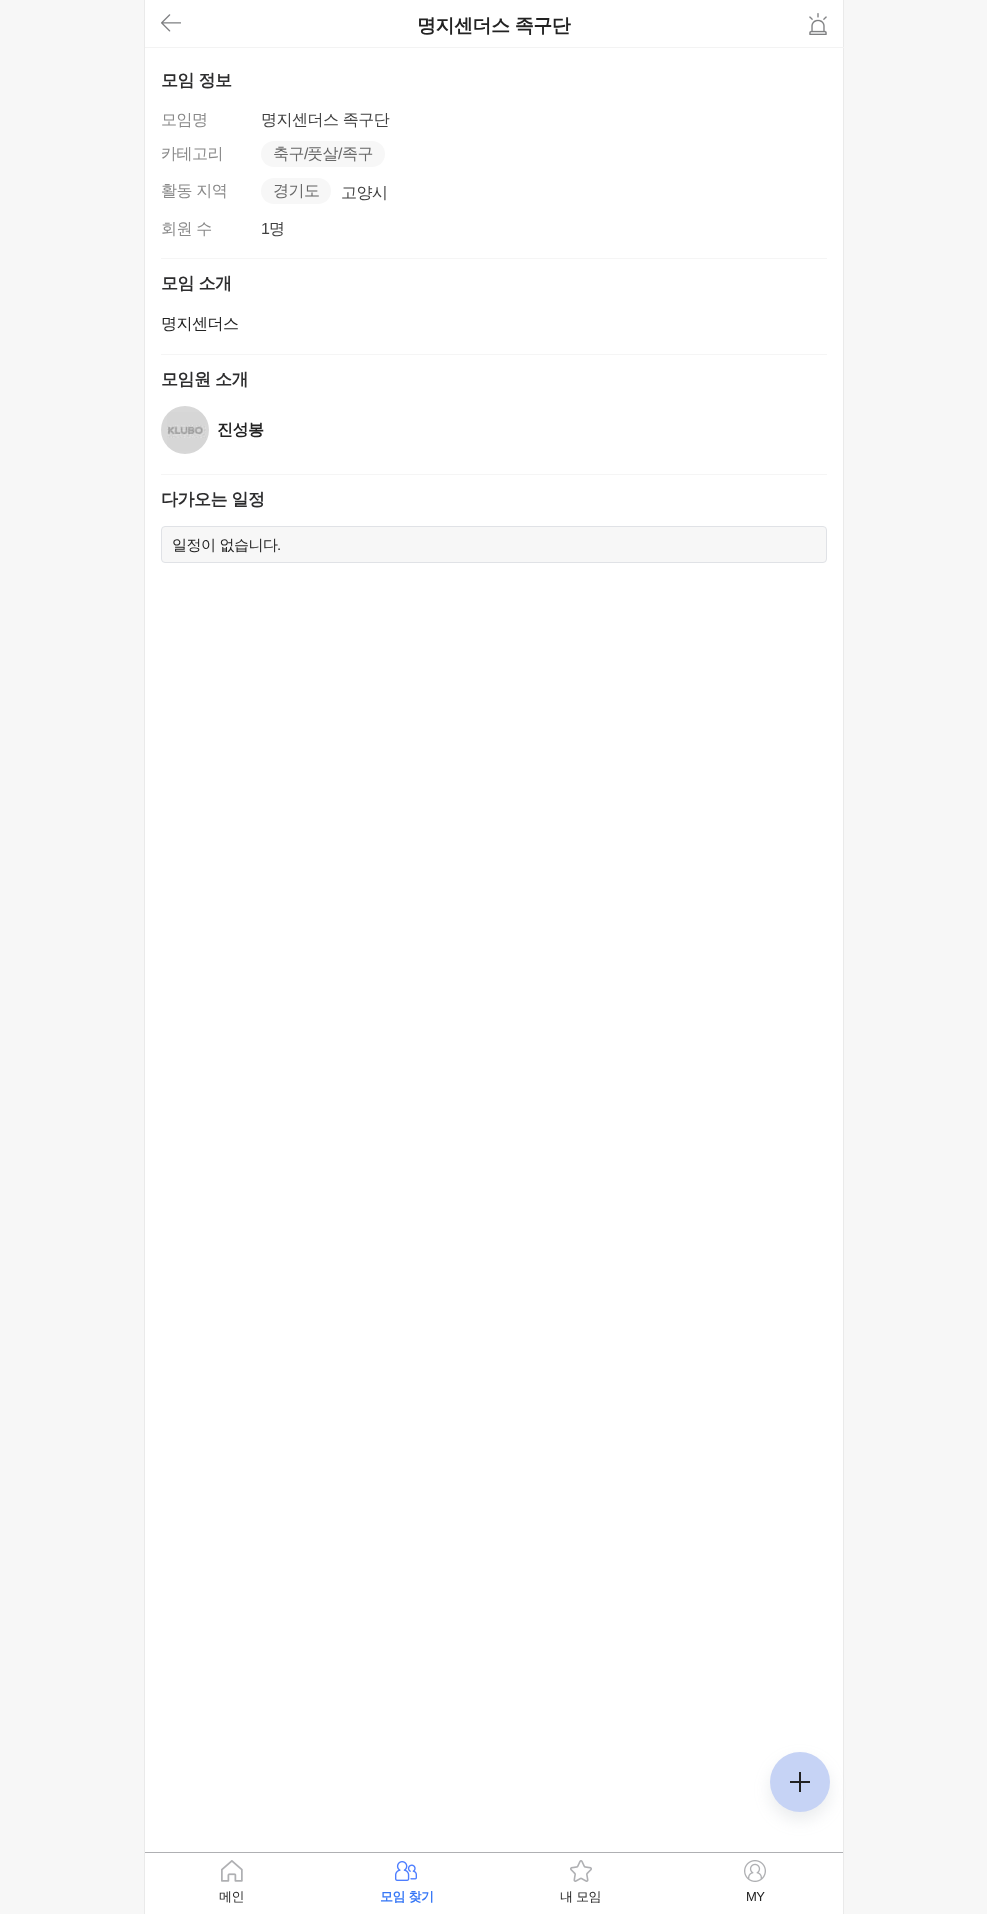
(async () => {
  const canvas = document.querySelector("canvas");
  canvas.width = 987;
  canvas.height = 1914;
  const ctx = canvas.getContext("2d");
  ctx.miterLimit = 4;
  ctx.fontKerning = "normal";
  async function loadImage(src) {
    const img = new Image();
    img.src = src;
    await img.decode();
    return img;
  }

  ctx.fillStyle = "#f7f7f7";
  ctx.fillRect(0, 0, 987, 1914);
  for (const [x, y, w, h, color] of [
    [145, 48, 698, 1804, "#ffffff"],
    [843, 0, 1, 1852, "#eaeaea"],
    [144, 48, 1, 1804, "#eaeaea"],
    [145, 0, 698, 47, "#ffffff"],
    [144, 47, 700, 1, "#f3f3f3"],
    [144, 0, 1, 48, "#eaeaea"],
  ]) {
    ctx.fillStyle = color;
    ctx.fillRect(x, y, w, h);
  }
  ctx.drawImage(await loadImage("img/1.png"), 161, 14, 20, 18);
  ctx.drawImage(await loadImage("img/2.png"), 809, 13, 18, 22);
  ctx.fillStyle = "#f7f7f7";
  ctx.beginPath();
  ctx.roundRect(261, 141, 124, 26, 13);
  ctx.fill();
  ctx.beginPath();
  ctx.roundRect(261, 178, 70, 26, 13);
  ctx.fill();
  ctx.fillStyle = "#f5f5f5";
  ctx.fillRect(161, 258, 666, 1);
  ctx.fillRect(161, 354, 666, 1);
  ctx.drawImage(await loadImage("img/3.png"), 161, 406, 48, 48);
  ctx.fillRect(161, 474, 666, 1);
  ctx.fillStyle = "#f7f7f7";
  ctx.beginPath();
  ctx.roundRect(161.5, 526.5, 665, 36, 3.5);
  ctx.fill();
  ctx.strokeStyle = "#e0e2e6";
  ctx.stroke();
  ctx.fillStyle = "rgba(148, 158, 171, 0.2)";
  ctx.filter = "blur(8px)";
  ctx.beginPath();
  ctx.roundRect(770, 1760, 60, 60, 30);
  ctx.fill();
  ctx.filter = "none";
  ctx.fillStyle = "#c6d3f5";
  ctx.beginPath();
  ctx.arc(800, 1782, 30, 0, Math.PI * 2);
  ctx.fill();
  for (const [x, y, w, h, color] of [
    [790, 1781, 20, 2, "#222222"],
    [799, 1772, 2, 20, "#222222"],
    [145, 1853, 698, 61, "#ffffff"],
    [144, 1852, 700, 1, "#afb0b3"],
    [843, 1852, 1, 62, "#eaeaea"],
    [144, 1852, 1, 62, "#eaeaea"],
  ]) {
    ctx.fillStyle = color;
    ctx.fillRect(x, y, w, h);
  }
  ctx.drawImage(await loadImage("img/4.png"), 221, 1860, 22, 22);
  ctx.drawImage(await loadImage("img/5.png"), 395, 1861, 22, 20);
  ctx.drawImage(await loadImage("img/6.png"), 570, 1860, 22, 22);
  ctx.drawImage(await loadImage("img/7.png"), 744, 1860, 22, 22);
  ctx.letterSpacing = "-0.5px";
  ctx.font = "bold 19px WenQuanYi Zen Hei";
  ctx.fillStyle = "#222222";
  ctx.fillText("명지센더스 족구단", 417, 32);
  ctx.font = "bold 17px WenQuanYi Zen Hei";
  ctx.fillStyle = "#2d2d2e";
  ctx.fillText("모임 정보", 161, 86);
  ctx.font = "500 16px WenQuanYi Zen Hei";
  ctx.fillStyle = "#8a8a8a";
  ctx.fillText("모임명", 161, 125);
  ctx.fillStyle = "#404040";
  ctx.fillText("명지센더스 족구단", 261, 125);
  ctx.fillStyle = "#8a8a8a";
  ctx.fillText("카테고리", 161, 159);
  ctx.fillStyle = "#676767";
  ctx.fillText("축구", 273, 159);
  ctx.font = "16px Liberation Sans";
  ctx.fillText("/", 304, 159);
  ctx.font = "500 16px WenQuanYi Zen Hei";
  ctx.fillText("풋살", 307, 159);
  ctx.font = "16px Liberation Sans";
  ctx.fillText("/", 338, 159);
  ctx.font = "500 16px WenQuanYi Zen Hei";
  ctx.fillText("족구", 342, 159);
  ctx.fillStyle = "#8a8a8a";
  ctx.fillText("활동 지역", 161, 196);
  ctx.fillStyle = "#676767";
  ctx.fillText("경기도", 273, 196);
  ctx.fillStyle = "#404040";
  ctx.fillText("고양시", 341, 198);
  ctx.fillStyle = "#8a8a8a";
  ctx.fillText("회원 수", 161, 234);
  ctx.font = "16px Liberation Sans";
  ctx.fillStyle = "#404040";
  ctx.fillText("1", 261, 234);
  ctx.font = "500 16px WenQuanYi Zen Hei";
  ctx.fillText("명", 269, 234);
  ctx.font = "bold 17px WenQuanYi Zen Hei";
  ctx.fillStyle = "#2d2d2e";
  ctx.fillText("모임 소개", 161, 289);
  ctx.font = "500 16px WenQuanYi Zen Hei";
  ctx.fillStyle = "#222222";
  ctx.fillText("명지센더스", 161, 329);
  ctx.font = "bold 17px WenQuanYi Zen Hei";
  ctx.fillStyle = "#2d2d2e";
  ctx.fillText("모임원 소개", 161, 385);
  ctx.font = "bold 16px WenQuanYi Zen Hei";
  ctx.fillStyle = "#222222";
  ctx.fillText("진성봉", 217, 435);
  ctx.font = "bold 17px WenQuanYi Zen Hei";
  ctx.fillStyle = "#2d2d2e";
  ctx.fillText("다가오는 일정", 161, 505);
  ctx.font = "500 15px WenQuanYi Zen Hei";
  ctx.fillStyle = "#222222";
  ctx.fillText("일정이 없습니다", 172, 550);
  ctx.font = "15px Liberation Sans";
  ctx.fillText(".", 277, 550);
  ctx.font = "500 13px WenQuanYi Zen Hei";
  ctx.fillText("메인", 219, 1901);
  ctx.font = "bold 13px WenQuanYi Zen Hei";
  ctx.fillStyle = "#3677f6";
  ctx.fillText("모임 찾기", 380, 1901);
  ctx.font = "500 13px WenQuanYi Zen Hei";
  ctx.fillStyle = "#222222";
  ctx.fillText("내 모임", 560, 1901);
  ctx.font = "13px Liberation Sans";
  ctx.fillText("MY", 746, 1901);
})();
